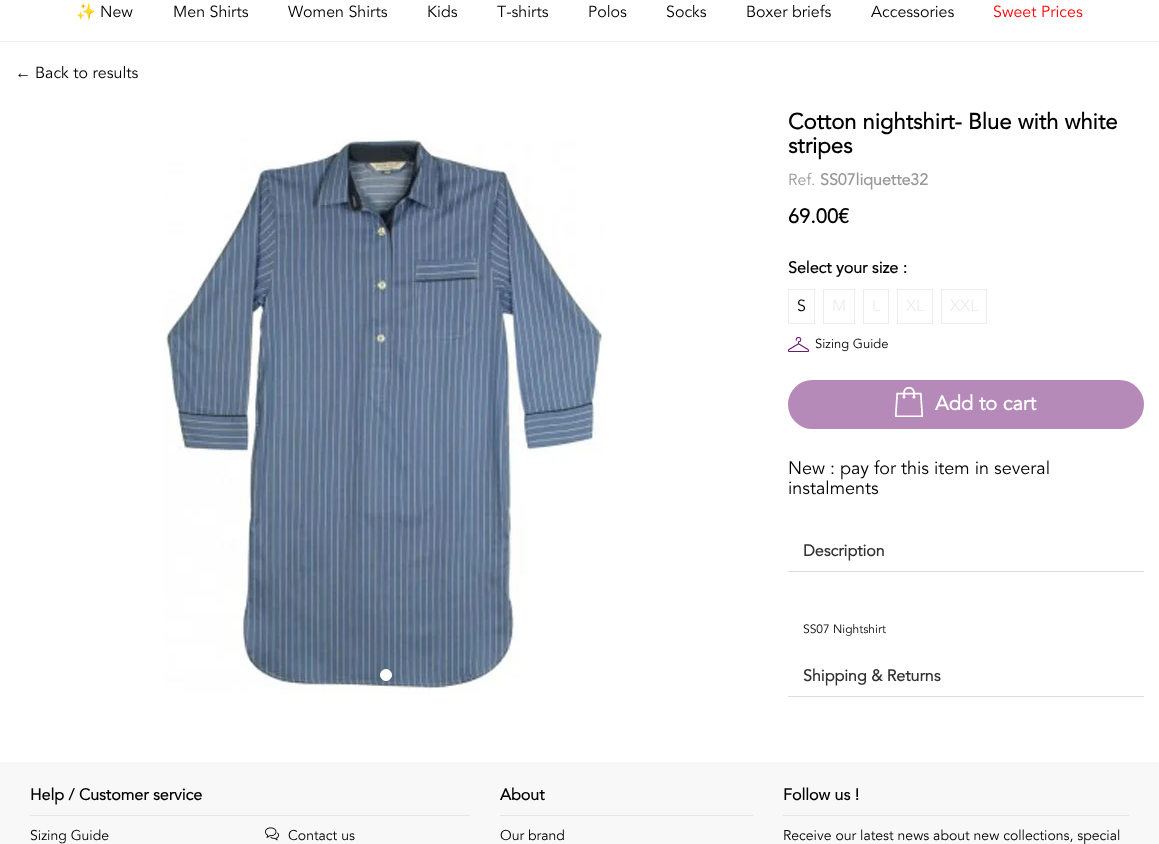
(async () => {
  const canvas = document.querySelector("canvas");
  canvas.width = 1159;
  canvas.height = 844;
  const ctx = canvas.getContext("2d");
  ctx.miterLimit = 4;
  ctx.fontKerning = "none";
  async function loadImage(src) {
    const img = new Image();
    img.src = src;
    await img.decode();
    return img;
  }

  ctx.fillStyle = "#ffffff";
  ctx.fillRect(0, 0, 1159, 844);
  ctx.fillStyle = "#efefef";
  ctx.fillRect(0, 41, 1159, 1);
  ctx.drawImage(await loadImage("img/1.png"), 164, 138, 441, 556);
  ctx.fillStyle = "#ffffff";
  ctx.beginPath();
  ctx.arc(386, 675, 5.5, 0, Math.PI * 2);
  ctx.fill();
  ctx.strokeStyle = "#ffffff";
  ctx.stroke();
  ctx.strokeStyle = "#ededed";
  ctx.strokeRect(788.5, 289.5, 26, 34);
  ctx.strokeRect(823.5, 289.5, 31, 34);
  ctx.strokeRect(863.5, 289.5, 25, 34);
  ctx.strokeRect(897.5, 289.5, 35, 34);
  ctx.strokeRect(941.5, 289.5, 45, 34);
  ctx.drawImage(await loadImage("img/2.png"), 788, 337, 21, 15);
  ctx.fillStyle = "#b589b8";
  ctx.beginPath();
  ctx.roundRect(788, 380, 356, 49, 24.5);
  ctx.fill();
  ctx.drawImage(await loadImage("img/3.png"), 895, 387, 28, 30);
  for (const [x, y, w, h, color] of [
    [788, 571, 356, 1, "#dddddd"],
    [788, 696, 356, 1, "#dddddd"],
    [0, 762, 1159, 82, "#f8f8f8"],
    [30, 815, 440, 1, "#e6e6e6"],
  ]) {
    ctx.fillStyle = color;
    ctx.fillRect(x, y, w, h);
  }
  ctx.drawImage(await loadImage("img/4.png"), 265, 827, 14, 14);
  ctx.fillRect(500, 815, 253, 1);
  ctx.fillRect(783, 815, 346, 1);
  ctx.font = "16px Noto Color Emoji";
  ctx.fillStyle = "#000000";
  ctx.fillText("✨", 76, 17);
  ctx.font = "16px Avenir";
  for (const [text, x, y] of [
    ["New", 100, 17],
    ["Men Shirts", 173, 17],
    ["Women Shirts", 288, 17],
    ["Kids", 427, 17],
    ["T-shirts", 497, 17],
    ["Polos", 588, 17],
    ["Socks", 666, 17],
    ["Boxer briefs", 746, 17],
    ["Accessories", 871, 17],
  ]) {
    ctx.fillText(text, x, y);
  }
  ctx.fillStyle = "#ff0000";
  ctx.fillText("Sweet Prices", 993, 17);
  ctx.font = "16px Liberation Serif";
  ctx.fillStyle = "#000000";
  ctx.fillText("←", 15, 78);
  ctx.font = "16px Avenir";
  ctx.fillText("Back to results", 35, 78);
  ctx.font = "bold 22px Avenir";
  ctx.fillText("Cotton nightshirt- Blue with white", 788, 129);
  ctx.fillText("stripes", 788, 153);
  ctx.font = "16px Avenir";
  ctx.fillStyle = "#999999";
  ctx.fillText("Ref.", 788, 185);
  ctx.font = "bold 16px Avenir";
  ctx.fillText("SS07liquette32", 820, 185);
  ctx.font = "bold 20px Avenir";
  ctx.fillStyle = "#000000";
  ctx.fillText("69.00€", 788, 223);
  ctx.font = "bold 16px Avenir";
  ctx.fillText("Select your size :", 788, 273);
  ctx.font = "16px Avenir";
  ctx.fillText("S", 797, 311);
  ctx.fillStyle = "#ededed";
  for (const [text, x, y] of [
    ["M", 832, 311],
    ["L", 872, 311],
    ["XL", 906, 311],
    ["XXL", 950, 311],
  ]) {
    ctx.fillText(text, x, y);
  }
  ctx.font = "13px Avenir";
  ctx.fillStyle = "#000000";
  ctx.fillText("Sizing Guide", 815, 348);
  ctx.font = "bold 20px Avenir";
  ctx.fillStyle = "#ffffff";
  ctx.fillText("Add to cart", 935, 410);
  ctx.font = "18px Avenir";
  ctx.fillStyle = "#000000";
  ctx.fillText("New : pay for this item in several", 788, 474);
  ctx.fillText("instalments", 788, 494);
  ctx.font = "bold 16px Avenir";
  ctx.fillStyle = "#333333";
  ctx.fillText("Description", 803, 556);
  ctx.font = "12px Avenir";
  ctx.fillStyle = "#000000";
  ctx.fillText("SS07 Nightshirt", 803, 633);
  ctx.font = "bold 16px Avenir";
  ctx.fillStyle = "#333333";
  ctx.fillText("Shipping & Returns", 803, 681);
  ctx.fillStyle = "#000000";
  ctx.fillText("Help / Customer service", 30, 800);
  ctx.font = "14px Avenir";
  ctx.fillText("Sizing Guide", 30, 840);
  ctx.fillText("Contact us", 288, 840);
  ctx.font = "bold 16px Avenir";
  ctx.fillText("About", 500, 800);
  ctx.font = "14px Avenir";
  ctx.fillText("Our brand", 500, 840);
  ctx.font = "bold 16px Avenir";
  ctx.fillText("Follow us !", 783, 800);
  ctx.font = "14px Avenir";
  ctx.fillText("Receive our latest news about new collections, special", 783, 840);
})();
